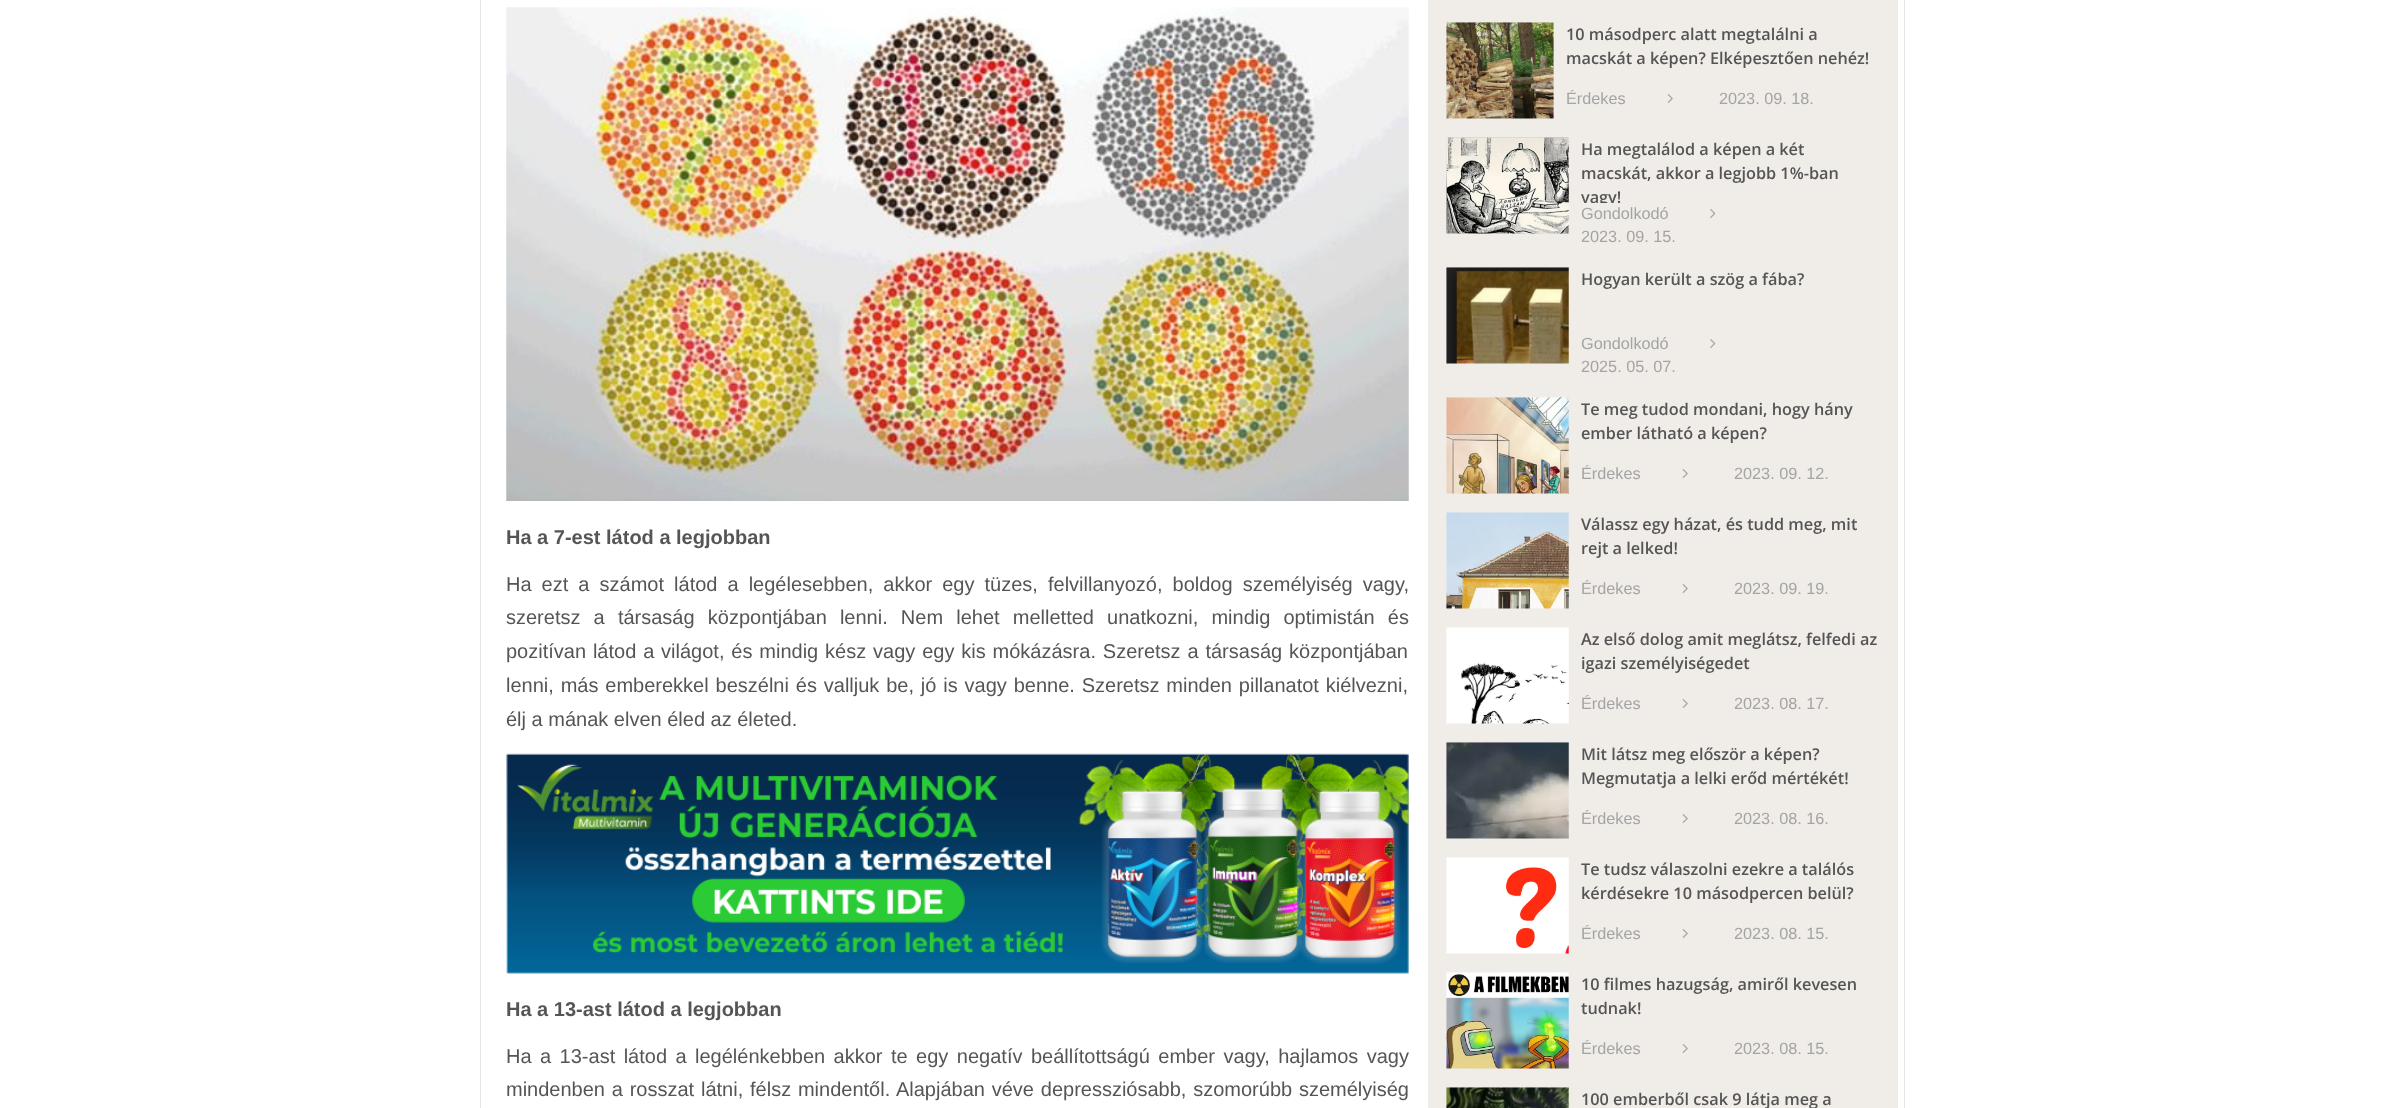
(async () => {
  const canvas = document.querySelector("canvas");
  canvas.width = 2383;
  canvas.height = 1108;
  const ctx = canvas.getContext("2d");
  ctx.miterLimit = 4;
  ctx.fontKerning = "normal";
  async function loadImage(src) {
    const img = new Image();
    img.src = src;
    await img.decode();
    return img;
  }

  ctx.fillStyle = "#ffffff";
  ctx.fillRect(0, 0, 2383, 1108);
  ctx.strokeStyle = "#e6e6e6";
  ctx.strokeRect(480.5, -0.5, 1424, 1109);
  ctx.drawImage(await loadImage("img/1.png"), 506, 7, 903, 494);
  ctx.drawImage(await loadImage("img/2.png"), 506, 753, 903, 221);
  ctx.fillStyle = "#f0ede9";
  ctx.fillRect(1428, 0, 470, 1108);
  ctx.drawImage(await loadImage("img/3.png"), 1446, 22, 108, 97);
  ctx.drawImage(await loadImage("img/4.png"), 1667, 94, 6, 9);
  ctx.drawImage(await loadImage("img/5.png"), 1446, 137, 123, 97);
  ctx.drawImage(await loadImage("img/6.png"), 1710, 209, 6, 9);
  ctx.drawImage(await loadImage("img/7.png"), 1446, 267, 123, 97);
  ctx.drawImage(await loadImage("img/6.png"), 1710, 339, 6, 9);
  ctx.drawImage(await loadImage("img/8.png"), 1446, 397, 123, 97);
  ctx.drawImage(await loadImage("img/4.png"), 1682, 469, 6, 9);
  ctx.drawImage(await loadImage("img/9.png"), 1446, 512, 123, 97);
  ctx.drawImage(await loadImage("img/4.png"), 1682, 584, 6, 9);
  ctx.drawImage(await loadImage("img/10.png"), 1446, 627, 123, 97);
  ctx.drawImage(await loadImage("img/4.png"), 1682, 699, 6, 9);
  ctx.drawImage(await loadImage("img/11.png"), 1446, 742, 123, 97);
  ctx.drawImage(await loadImage("img/4.png"), 1682, 814, 6, 9);
  ctx.drawImage(await loadImage("img/12.png"), 1446, 857, 123, 97);
  ctx.drawImage(await loadImage("img/4.png"), 1682, 929, 6, 9);
  ctx.drawImage(await loadImage("img/13.png"), 1446, 972, 123, 97);
  ctx.drawImage(await loadImage("img/4.png"), 1682, 1044, 6, 9);
  ctx.drawImage(await loadImage("img/14.png"), 1446, 1087, 123, 21);
  ctx.font = "bold 20px Liberation Sans";
  ctx.fillStyle = "#555555";
  ctx.fillText("Ha a 7-est látod a legjobban", 506, 544);
  ctx.wordSpacing = "4.5px";
  ctx.font = "20px Liberation Sans";
  ctx.fillText("Ha ezt a számot látod a legélesebben, akkor egy tüzes, felvillanyozó, boldog személyiség vagy,", 506, 591);
  ctx.wordSpacing = "7.6px";
  ctx.fillText("szeretsz a társaság központjában lenni. Nem lehet melletted unatkozni, mindig optimistán és", 506, 624);
  ctx.wordSpacing = "1.3px";
  ctx.fillText("pozitívan látod a világot, és mindig kész vagy egy kis mókázásra. Szeretsz a társaság központjában", 506, 658);
  ctx.fillText("lenni, más emberekkel beszélni és valljuk be, jó is vagy benne. Szeretsz minden pillanatot kiélvezni,", 506, 692);
  ctx.wordSpacing = "0px";
  ctx.fillText("élj a mának elven éled az életed.", 506, 726);
  ctx.font = "bold 20px Liberation Sans";
  ctx.fillText("Ha a 13-ast látod a legjobban", 506, 1016);
  ctx.wordSpacing = "2.9px";
  ctx.font = "20px Liberation Sans";
  ctx.fillText("Ha a 13-ast látod a legélénkebben akkor te egy negatív beállítottságú ember vagy, hajlamos vagy", 506, 1063);
  ctx.wordSpacing = "1.25px";
  ctx.fillText("mindenben a rosszat látni, félsz mindentől. Alapjában véve depressziósabb, szomorúbb személyiség", 506, 1096);
  ctx.wordSpacing = "0px";
  ctx.font = "600 16.25px Open Sans";
  ctx.fillText("10 másodperc alatt megtalálni a", 1566, 40);
  ctx.fillText("macskát a képen? Elképesztően nehéz!", 1566, 64);
  ctx.font = "16.25px Liberation Sans";
  ctx.fillStyle = "#a4a4a4";
  ctx.fillText("Érdekes", 1566, 104);
  ctx.fillText("2023. 09. 18.", 1719, 104);
  ctx.font = "600 16.25px Open Sans";
  ctx.fillStyle = "#555555";
  ctx.fillText("Ha megtalálod a képen a két", 1581, 155);
  ctx.fillText("macskát, akkor a legjobb 1%-ban", 1581, 179);
  ctx.save();
  ctx.beginPath();
  ctx.rect(1581, 138, 298, 65);
  ctx.clip();
  ctx.fillText("vagy!", 1581, 203);
  ctx.restore();
  ctx.font = "16.25px Liberation Sans";
  ctx.fillStyle = "#a4a4a4";
  ctx.fillText("Gondolkodó", 1581, 219);
  ctx.fillText("2023. 09. 15.", 1581, 242);
  ctx.font = "600 16.25px Open Sans";
  ctx.fillStyle = "#555555";
  ctx.fillText("Hogyan került a szög a fába?", 1581, 285);
  ctx.font = "16.25px Liberation Sans";
  ctx.fillStyle = "#a4a4a4";
  ctx.fillText("Gondolkodó", 1581, 349);
  ctx.fillText("2025. 05. 07.", 1581, 372);
  ctx.font = "600 16.25px Open Sans";
  ctx.fillStyle = "#555555";
  ctx.fillText("Te meg tudod mondani, hogy hány", 1581, 415);
  ctx.fillText("ember látható a képen?", 1581, 439);
  ctx.font = "16.25px Liberation Sans";
  ctx.fillStyle = "#a4a4a4";
  ctx.fillText("Érdekes", 1581, 479);
  ctx.fillText("2023. 09. 12.", 1734, 479);
  ctx.font = "600 16.25px Open Sans";
  ctx.fillStyle = "#555555";
  ctx.fillText("Válassz egy házat, és tudd meg, mit", 1581, 530);
  ctx.fillText("rejt a lelked!", 1581, 554);
  ctx.font = "16.25px Liberation Sans";
  ctx.fillStyle = "#a4a4a4";
  ctx.fillText("Érdekes", 1581, 594);
  ctx.fillText("2023. 09. 19.", 1734, 594);
  ctx.font = "600 16.25px Open Sans";
  ctx.fillStyle = "#555555";
  ctx.fillText("Az első dolog amit meglátsz, felfedi az", 1581, 645);
  ctx.fillText("igazi személyiségedet", 1581, 669);
  ctx.font = "16.25px Liberation Sans";
  ctx.fillStyle = "#a4a4a4";
  ctx.fillText("Érdekes", 1581, 709);
  ctx.fillText("2023. 08. 17.", 1734, 709);
  ctx.font = "600 16.25px Open Sans";
  ctx.fillStyle = "#555555";
  ctx.fillText("Mit látsz meg először a képen?", 1581, 760);
  ctx.fillText("Megmutatja a lelki erőd mértékét!", 1581, 784);
  ctx.font = "16.25px Liberation Sans";
  ctx.fillStyle = "#a4a4a4";
  ctx.fillText("Érdekes", 1581, 824);
  ctx.fillText("2023. 08. 16.", 1734, 824);
  ctx.font = "600 16.25px Open Sans";
  ctx.fillStyle = "#555555";
  ctx.fillText("Te tudsz válaszolni ezekre a találós", 1581, 875);
  ctx.fillText("kérdésekre 10 másodpercen belül?", 1581, 899);
  ctx.font = "16.25px Liberation Sans";
  ctx.fillStyle = "#a4a4a4";
  ctx.fillText("Érdekes", 1581, 939);
  ctx.fillText("2023. 08. 15.", 1734, 939);
  ctx.font = "600 16.25px Open Sans";
  ctx.fillStyle = "#555555";
  ctx.fillText("10 filmes hazugság, amiről kevesen", 1581, 990);
  ctx.fillText("tudnak!", 1581, 1014);
  ctx.font = "16.25px Liberation Sans";
  ctx.fillStyle = "#a4a4a4";
  ctx.fillText("Érdekes", 1581, 1054);
  ctx.fillText("2023. 08. 15.", 1734, 1054);
  ctx.font = "600 16.25px Open Sans";
  ctx.fillStyle = "#555555";
  ctx.fillText("100 emberből csak 9 látja meg a", 1581, 1105);
})();
